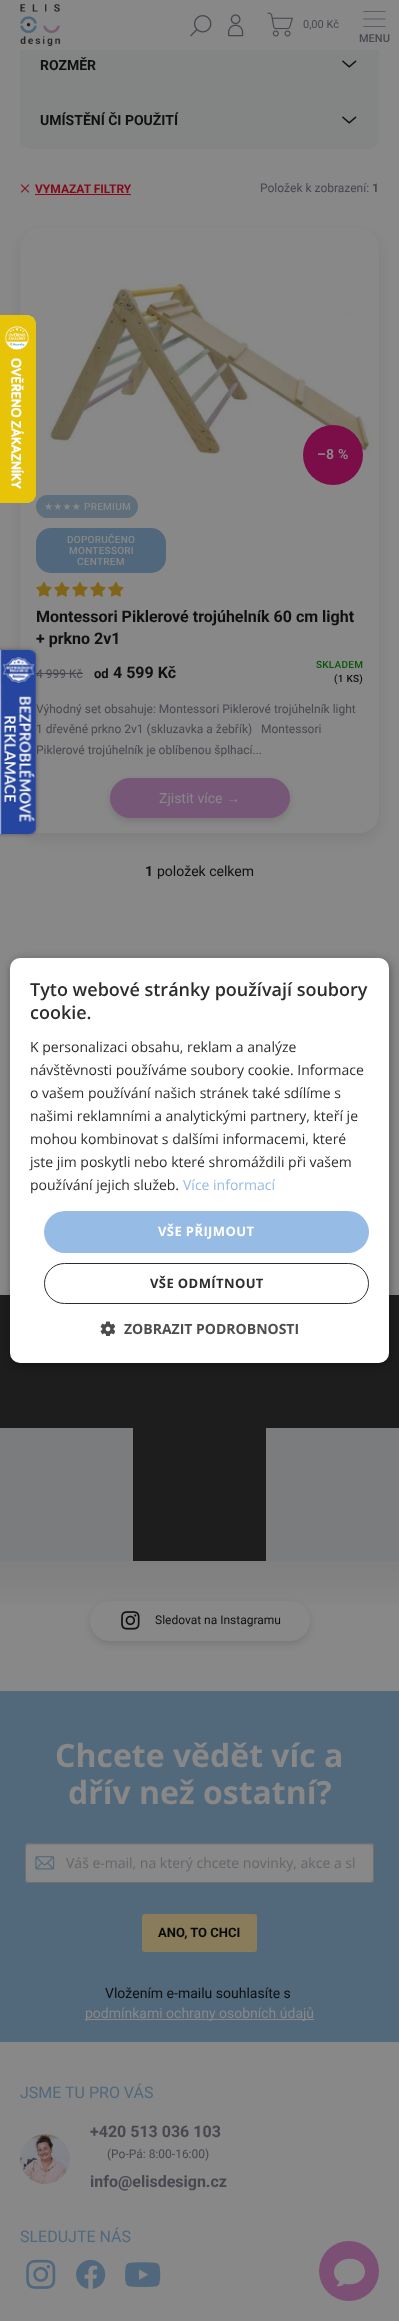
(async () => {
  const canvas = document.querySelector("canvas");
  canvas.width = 399;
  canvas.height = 2321;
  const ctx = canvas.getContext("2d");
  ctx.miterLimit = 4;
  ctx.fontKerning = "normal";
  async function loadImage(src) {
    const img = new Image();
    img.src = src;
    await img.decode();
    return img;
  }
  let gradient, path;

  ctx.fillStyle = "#888888";
  ctx.fillRect(0, 0, 399, 2321);
  ctx.fillStyle = "rgba(9, 9, 9, 0.08)";
  ctx.filter = "blur(6px)";
  ctx.beginPath();
  ctx.roundRect(20, 234, 359, 605, 20);
  ctx.fill();
  ctx.filter = "none";
  ctx.fillStyle = "#888888";
  ctx.beginPath();
  ctx.roundRect(20, 228, 359, 605, 20);
  ctx.fill();
  ctx.drawImage(await loadImage("img/1.png"), 0, 315, 36, 188);
  ctx.drawImage(await loadImage("img/2.png"), 20, 4, 41, 42);
  ctx.drawImage(await loadImage("img/3.png"), 190, 15, 22, 22);
  ctx.drawImage(await loadImage("img/4.png"), 228, 14, 16, 23);
  ctx.drawImage(await loadImage("img/5.png"), 267, 12, 26, 25);
  ctx.drawImage(await loadImage("img/6.png"), 363, 11, 23, 16);
  ctx.fillStyle = "#838585";
  ctx.fillRect(20, 50, 359, 43);
  ctx.drawImage(await loadImage("img/7.png"), 342, 60, 15, 8);
  ctx.beginPath();
  ctx.roundRect(20, 93, 359, 56, [0, 0, 10, 10]);
  ctx.fill();
  ctx.drawImage(await loadImage("img/7.png"), 342, 116, 15, 8);
  ctx.drawImage(await loadImage("img/8.png"), 20, 184, 10, 9);
  ctx.fillStyle = "#850919";
  ctx.fillRect(35, 194, 96, 1);
  ctx.drawImage(await loadImage("img/9.png"), 48, 282, 325, 174);
  ctx.fillStyle = "#7b0d48";
  ctx.beginPath();
  ctx.arc(333, 455, 30, 0, Math.PI * 2);
  ctx.fill();
  ctx.fillStyle = "#5e6e7a";
  ctx.beginPath();
  ctx.roundRect(36, 495, 102, 23, 11.5);
  ctx.fill();
  ctx.fillStyle = "#51687c";
  ctx.beginPath();
  ctx.roundRect(36, 528, 130, 45, 15);
  ctx.fill();
  ctx.drawImage(await loadImage("img/10.png"), 36, 582, 16, 15);
  ctx.drawImage(await loadImage("img/10.png"), 54, 582, 16, 15);
  ctx.drawImage(await loadImage("img/10.png"), 72, 582, 16, 15);
  ctx.drawImage(await loadImage("img/10.png"), 90, 582, 16, 15);
  ctx.drawImage(await loadImage("img/10.png"), 108, 582, 16, 15);
  ctx.fillStyle = "#474850";
  ctx.fillRect(36, 673, 47, 1);
  ctx.fillStyle = "rgba(9, 9, 9, 0.12)";
  ctx.filter = "blur(3px)";
  ctx.beginPath();
  ctx.roundRect(110, 781, 180, 40, 20);
  ctx.fill();
  ctx.filter = "none";
  ctx.fillStyle = "#775778";
  ctx.beginPath();
  ctx.roundRect(110.5, 778.5, 179, 39, 19.5);
  ctx.fill();
  ctx.strokeStyle = "#775778";
  ctx.stroke();
  for (const [x, y, w, h, color] of [
    [0, 1428, 399, 133, "#7b7c7e"],
    [0, 1295, 133, 133, "#1d1d1d"],
    [133, 1363, 133, 198, "#1d1d1d"],
    [266, 1295, 133, 133, "#1d1d1d"],
  ]) {
    ctx.fillStyle = color;
    ctx.fillRect(x, y, w, h);
  }
  gradient = ctx.createLinearGradient(200, 1621, 200, 1561);
  gradient.addColorStop(0, "#888888");
  gradient.addColorStop(1, "#7f7f80");
  ctx.fillStyle = gradient;
  ctx.fillRect(0, 1561, 399, 43);
  ctx.fillStyle = "rgba(9, 9, 9, 0.12)";
  ctx.filter = "blur(3px)";
  ctx.beginPath();
  ctx.roundRect(90, 1604, 220, 40, 20);
  ctx.fill();
  ctx.filter = "none";
  ctx.fillStyle = "#888888";
  ctx.beginPath();
  ctx.roundRect(90, 1601, 220, 40, 20);
  ctx.fill();
  ctx.drawImage(await loadImage("img/11.png"), 121, 1611, 19, 19);
  ctx.fillStyle = "#52687b";
  ctx.fillRect(0, 1691, 399, 351);
  ctx.fillStyle = "#888888";
  ctx.beginPath();
  ctx.roundRect(25, 1843, 349, 40, 4);
  ctx.fill();
  ctx.fillStyle = "#7f7f7f";
  path = new Path2D("M29 1845H370C372 1845 373 1846 373 1848C373 1846 372 1844 370 1844H29L27 1845L26 1848C26 1846 27 1845 29 1845Z");
  ctx.fill(path);
  ctx.beginPath();
  ctx.roundRect(25.5, 1843.5, 348, 39, 3.5);
  ctx.strokeStyle = "#6f6f6f";
  ctx.stroke();
  ctx.drawImage(await loadImage("img/12.png"), 35, 1856, 20, 14);
  ctx.fillStyle = "#887c5b";
  ctx.beginPath();
  ctx.roundRect(142, 1914, 115, 38, 3);
  ctx.fill();
  ctx.fillStyle = "#888888";
  ctx.fillRect(85, 2019, 229, 1);
  ctx.drawImage(await loadImage("img/13.png"), 20, 2134, 50, 50);
  ctx.drawImage(await loadImage("img/14.png"), 26, 2259, 30, 30);
  ctx.drawImage(await loadImage("img/15.png"), 76, 2259, 30, 30);
  ctx.drawImage(await loadImage("img/16.png"), 125, 2262, 36, 25);
  ctx.save();
  path = new Path2D("M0 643H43V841H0ZM-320 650H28C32.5 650 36 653.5 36 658V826C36 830.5 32.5 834 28 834H-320Z");
  ctx.clip(path, "evenodd");
  ctx.fillStyle = "rgba(0, 0, 0, 0.35)";
  ctx.filter = "blur(2px)";
  ctx.beginPath();
  ctx.roundRect(-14, 650, 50, 184, 8);
  ctx.fill();
  ctx.filter = "none";
  ctx.restore();
  ctx.drawImage(await loadImage("img/17.png"), 0, 650, 36, 184);
  ctx.fillStyle = "rgba(0, 0, 0, 0.35)";
  ctx.filter = "blur(4px)";
  ctx.beginPath();
  ctx.roundRect(11, 960, 379, 405, 10);
  ctx.fill();
  ctx.filter = "none";
  ctx.fillStyle = "#ffffff";
  ctx.beginPath();
  ctx.roundRect(10, 958, 379, 405, 10);
  ctx.fill();
  ctx.fillStyle = "#96bbe5";
  ctx.beginPath();
  ctx.roundRect(44, 1211, 325, 42, 21);
  ctx.fill();
  ctx.beginPath();
  ctx.roundRect(44.5, 1263.5, 324, 40, 20);
  ctx.strokeStyle = "#2d2d2d";
  ctx.stroke();
  ctx.drawImage(await loadImage("img/18.png"), 100, 1321, 15, 15);
  ctx.drawImage(await loadImage("img/19.png"), 319, 2241, 60, 60);
  ctx.font = "11px Roboto";
  ctx.fillStyle = "#474850";
  ctx.fillText("0,00 Kč", 303, 28);
  ctx.font = "500 11px Roboto";
  ctx.fillText("MENU", 359, 42);
  ctx.font = "bold 14px Roboto";
  ctx.fillStyle = "#101010";
  ctx.fillText("ROZMĚR", 40, 70);
  ctx.fillText("UMÍSTĚNÍ ČI POUŽITÍ", 40, 125);
  ctx.font = "bold 12px Roboto";
  ctx.fillStyle = "#850919";
  ctx.fillText("VYMAZAT FILTRY", 35, 193);
  ctx.font = "12px Roboto";
  ctx.fillStyle = "#474850";
  ctx.fillText("Položek k zobrazení:", 260, 192);
  ctx.font = "bold 12px Roboto";
  ctx.fillText("1", 372, 192);
  ctx.letterSpacing = "0.25px";
  ctx.font = "bold 14px Roboto";
  ctx.fillStyle = "#888888";
  ctx.fillText("–8 %", 317, 459);
  ctx.font = "10px DejaVu Sans";
  ctx.fillText("★★★★", 44, 510);
  ctx.font = "500 10px Roboto";
  for (const [text, x, y] of [
    ["PREMIUM", 84, 510],
    ["DOPORUČENO", 67, 543],
    ["MONTESSORI", 69, 554],
    ["CENTREM", 77, 565],
  ]) {
    ctx.fillText(text, x, y);
  }
  ctx.letterSpacing = "0px";
  ctx.font = "bold 16px Roboto";
  ctx.fillStyle = "#101010";
  ctx.fillText("Montessori Piklerové trojúhelník 60 cm light", 36, 622);
  ctx.fillText("+ prkno 2v1", 36, 644);
  ctx.font = "12px Roboto";
  ctx.fillStyle = "#474850";
  ctx.fillText("4 999 Kč", 36, 678);
  ctx.font = "bold 13px Roboto";
  ctx.fillStyle = "#101010";
  ctx.fillText("od", 94, 678);
  ctx.font = "bold 16px Roboto";
  ctx.fillText("4 599 Kč", 113, 678);
  ctx.letterSpacing = "0.25px";
  ctx.font = "500 10px Roboto";
  ctx.fillStyle = "#095509";
  ctx.fillText("SKLADEM", 316, 668);
  ctx.fillStyle = "#101010";
  ctx.fillText("(1 KS)", 334, 682);
  ctx.letterSpacing = "0px";
  ctx.font = "12px Roboto";
  ctx.fillStyle = "#474850";
  for (const [text, x, y] of [
    ["Výhodný set obsahuje: Montessori Piklerové trojúhelník light", 36, 713],
    ["1 dřevěné prkno 2v1 (skluzavka a žebřík)", 36, 733],
    ["Montessori", 261, 733],
    ["Piklerové trojúhelník je oblíbenou šplhací...", 36, 754],
  ]) {
    ctx.fillText(text, x, y);
  }
  ctx.font = "14px Roboto";
  ctx.fillStyle = "#888888";
  ctx.fillText("Zjistit více", 159, 803);
  ctx.font = "14px Liberation Sans";
  ctx.fillText("→", 226, 803);
  ctx.font = "bold 14px Roboto";
  ctx.fillStyle = "#101010";
  ctx.fillText("1", 145, 876);
  ctx.font = "14px Roboto";
  ctx.fillText("položek celkem", 157, 876);
  ctx.font = "12px Roboto";
  ctx.fillText("Sledovat na Instagramu", 155, 1624);
  ctx.font = "bold 32px Open Sans";
  ctx.fillStyle = "#888888";
  ctx.fillText("Chcete vědět víc a", 55, 1767);
  ctx.fillText("dřív než ostatní?", 68, 1804);
  ctx.font = "14px Open Sans";
  ctx.fillStyle = "#65666b";
  ctx.fillText("Váš e-mail, na který chcete novinky, akce a sl", 66, 1868);
  ctx.font = "bold 13px Roboto";
  ctx.fillStyle = "#090909";
  ctx.fillText("ANO, TO CHCI", 158, 1937);
  ctx.font = "14px Roboto";
  ctx.fillStyle = "#101010";
  ctx.fillText("Vložením e-mailu souhlasíte s", 105, 1998);
  ctx.fillStyle = "#888888";
  ctx.fillText("podmínkami ochrany osobních údajů", 85, 2018);
  ctx.font = "16px Roboto";
  ctx.fillStyle = "#51687c";
  ctx.fillText("JSME TU PRO VÁS", 20, 2098);
  ctx.font = "bold 16px Roboto";
  ctx.fillStyle = "#474850";
  ctx.fillText("+420 513 036 103", 90, 2137);
  ctx.font = "12px Roboto";
  ctx.fillText("(Po-Pá: 8:00-16:00)", 107, 2158);
  ctx.font = "bold 16px Roboto";
  ctx.fillText("info@elisdesign.cz", 90, 2187);
  ctx.font = "16px Roboto";
  ctx.fillStyle = "#51687c";
  ctx.fillText("SLEDUJTE NÁS", 20, 2242);
  ctx.font = "600 18px Open Sans";
  ctx.fillStyle = "#2d2d2d";
  ctx.fillText("Tyto webové stránky používají soubory", 30, 996);
  ctx.fillText("cookie.", 30, 1019);
  ctx.font = "14px Open Sans";
  for (const [text, x, y] of [
    ["K personalizaci obsahu, reklam a analýze", 30, 1052],
    ["návštěvnosti používáme soubory cookie. Informace", 30, 1075],
    ["o vašem používání našich stránek také sdílíme s", 30, 1098],
    ["našimi reklamními a analytickými partnery, kteří je", 30, 1121],
    ["mohou kombinovat s dalšími informacemi, které", 30, 1144],
    ["jste jim poskytli nebo které shromáždili při vašem", 30, 1167],
    ["používání jejich služeb.", 30, 1190],
  ]) {
    ctx.fillText(text, x, y);
  }
  ctx.fillStyle = "#96bbe5";
  ctx.fillText("Více informací", 183, 1190);
  ctx.letterSpacing = "0.4px";
  ctx.font = "bold 13px Open Sans";
  ctx.fillStyle = "#ffffff";
  ctx.fillText("VŠE PŘIJMOUT", 158, 1236);
  ctx.fillStyle = "#2d2d2d";
  ctx.fillText("VŠE ODMÍTNOUT", 150, 1288);
  ctx.letterSpacing = "0px";
  ctx.font = "bold 14px Open Sans";
  ctx.fillStyle = "#4d4d4d";
  ctx.fillText("ZOBRAZIT PODROBNOSTI", 124, 1334);
})();
